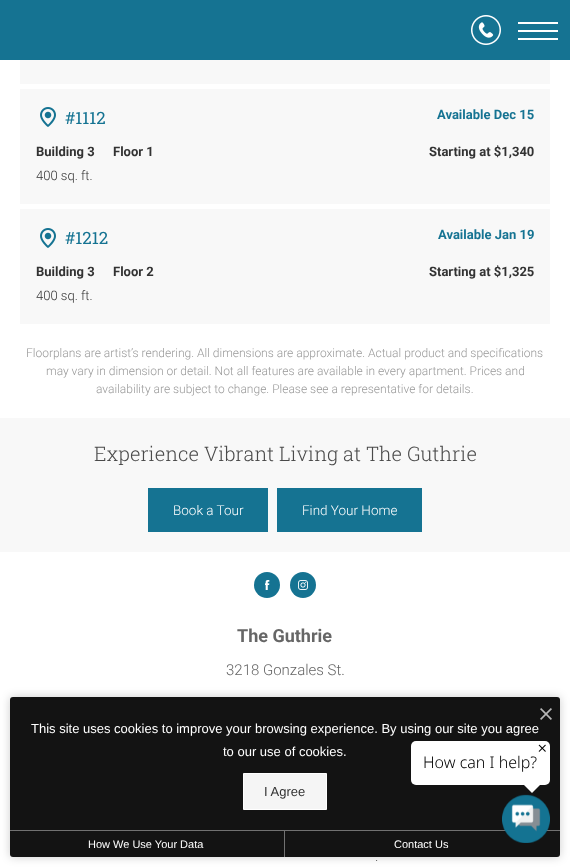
(async () => {
  const canvas = document.querySelector("canvas");
  canvas.width = 570;
  canvas.height = 867;
  const ctx = canvas.getContext("2d");
  ctx.miterLimit = 4;
  ctx.fontKerning = "normal";
  async function loadImage(src) {
    const img = new Image();
    img.src = src;
    await img.decode();
    return img;
  }
  let path;

  ctx.fillStyle = "#ffffff";
  ctx.fillRect(0, 0, 570, 867);
  ctx.fillStyle = "#157392";
  ctx.fillRect(0, 0, 570, 60);
  ctx.drawImage(await loadImage("img/1.png"), 471, 15, 30, 30);
  for (const [x, y, w, h, color] of [
    [518, 22, 40, 2, "#ffffff"],
    [518, 30, 40, 2, "#ffffff"],
    [518, 38, 40, 2, "#ffffff"],
    [20, 60, 530, 24, "#f8f8f8"],
    [20, 89, 530, 115, "#f8f8f8"],
  ]) {
    ctx.fillStyle = color;
    ctx.fillRect(x, y, w, h);
  }
  ctx.drawImage(await loadImage("img/2.png"), 40, 107, 16, 20);
  ctx.fillRect(20, 209, 530, 115);
  ctx.drawImage(await loadImage("img/2.png"), 40, 228, 16, 20);
  for (const [x, y, w, h, color] of [
    [0, 418, 570, 134, "#f8f8f8"],
    [148, 488, 120, 44, "#157392"],
    [277, 488, 145, 44, "#157392"],
  ]) {
    ctx.fillStyle = color;
    ctx.fillRect(x, y, w, h);
  }
  ctx.beginPath();
  ctx.arc(267, 585, 13, 0, Math.PI * 2);
  ctx.fill();
  ctx.drawImage(await loadImage("img/3.png"), 265, 580, 5, 10);
  ctx.beginPath();
  ctx.arc(303, 585, 13, 0, Math.PI * 2);
  ctx.fill();
  ctx.drawImage(await loadImage("img/4.png"), 298, 580, 10, 10);
  ctx.fillStyle = "rgba(0, 0, 0, 0.2)";
  ctx.filter = "blur(5px)";
  ctx.beginPath();
  ctx.roundRect(10, 697, 550, 160, 3);
  ctx.fill();
  ctx.filter = "none";
  ctx.fillStyle = "#131313";
  ctx.beginPath();
  ctx.roundRect(10, 697, 550, 160, 3);
  ctx.fill();
  ctx.drawImage(await loadImage("img/5.png"), 540, 708, 12, 12);
  ctx.fillStyle = "#f5f5f5";
  ctx.beginPath();
  ctx.rect(243.5, 773.5, 83, 36);
  ctx.fill();
  ctx.strokeStyle = "#ffffff";
  ctx.stroke();
  ctx.fillStyle = "#717171";
  ctx.fillRect(10, 830, 550, 1);
  ctx.fillRect(284, 831, 1, 26);
  ctx.fillStyle = "#ffffff";
  ctx.beginPath();
  ctx.roundRect(411, 741, 139, 44, 5);
  ctx.fill();
  ctx.drawImage(await loadImage("img/6.png"), 538, 744, 8, 8);
  path = new Path2D("M524 785H540L532 793Z");
  ctx.fill(path);
  ctx.drawImage(await loadImage("img/7.png"), 502, 794, 48, 49);
  ctx.font = "17px Roboto Slab";
  ctx.fillStyle = "#157392";
  ctx.fillText("#1112", 65, 124);
  ctx.font = "bold 13px Roboto";
  ctx.fillText("Available Dec 15", 437, 119);
  ctx.fillStyle = "#333333";
  ctx.fillText("Building 3", 36, 156);
  ctx.fillText("Floor 1", 113, 156);
  ctx.font = "300 13px Roboto";
  ctx.fillText("400 sq. ft.", 36, 180);
  ctx.font = "bold 13px Roboto";
  ctx.fillText("Starting at $1,340", 429, 156);
  ctx.font = "17px Roboto Slab";
  ctx.fillStyle = "#157392";
  ctx.fillText("#1212", 65, 244);
  ctx.font = "bold 13px Roboto";
  ctx.fillText("Available Jan 19", 438, 239);
  ctx.fillStyle = "#333333";
  ctx.fillText("Building 3", 36, 276);
  ctx.fillText("Floor 2", 113, 276);
  ctx.font = "300 13px Roboto";
  ctx.fillText("400 sq. ft.", 36, 300);
  ctx.font = "bold 13px Roboto";
  ctx.fillText("Starting at $1,325", 429, 276);
  ctx.font = "300 12px Roboto";
  ctx.fillStyle = "#999999";
  for (const [text, x, y] of [
    ["Floorplans are artist’s rendering. All dimensions are approximate. Actual product and specifications", 26, 357],
    ["may vary in dimension or detail. Not all features are available in every apartment. Prices and", 46, 375],
    ["availability are subject to change. Please see a representative for details.", 96, 393],
  ]) {
    ctx.fillText(text, x, y);
  }
  ctx.font = "300 20px Roboto Slab";
  ctx.fillStyle = "#4a4a4a";
  ctx.fillText("Experience Vibrant Living at The Guthrie", 94, 461);
  ctx.font = "300 13.5px Roboto";
  ctx.fillStyle = "#ffffff";
  ctx.fillText("Book a Tour", 173, 515);
  ctx.fillText("Find Your Home", 302, 515);
  ctx.font = "bold 18px Roboto";
  ctx.fillStyle = "#666666";
  ctx.fillText("The Guthrie", 237, 642);
  ctx.font = "300 15px Roboto";
  ctx.fillText("3218 Gonzales St.", 226, 675);
  ctx.font = "300 14px Roboto";
  ctx.fillText(".", 375, 861);
  ctx.font = "13px Liberation Sans";
  ctx.fillStyle = "#ffffff";
  ctx.fillText("This site uses cookies to improve your browsing experience. By using our site you agree", 31, 733);
  ctx.fillText("to our use of cookies.", 223, 756);
  ctx.fillStyle = "#333333";
  ctx.fillText("I Agree", 264, 796);
  ctx.font = "11px Liberation Sans";
  ctx.fillStyle = "#ffffff";
  ctx.fillText("How We Use Your Data", 88, 848);
  ctx.fillText("Contact Us", 394, 848);
  ctx.font = "300 16px Noto Sans";
  ctx.fillStyle = "#000000";
  ctx.fillText("How can I help?", 423, 768);
})();
